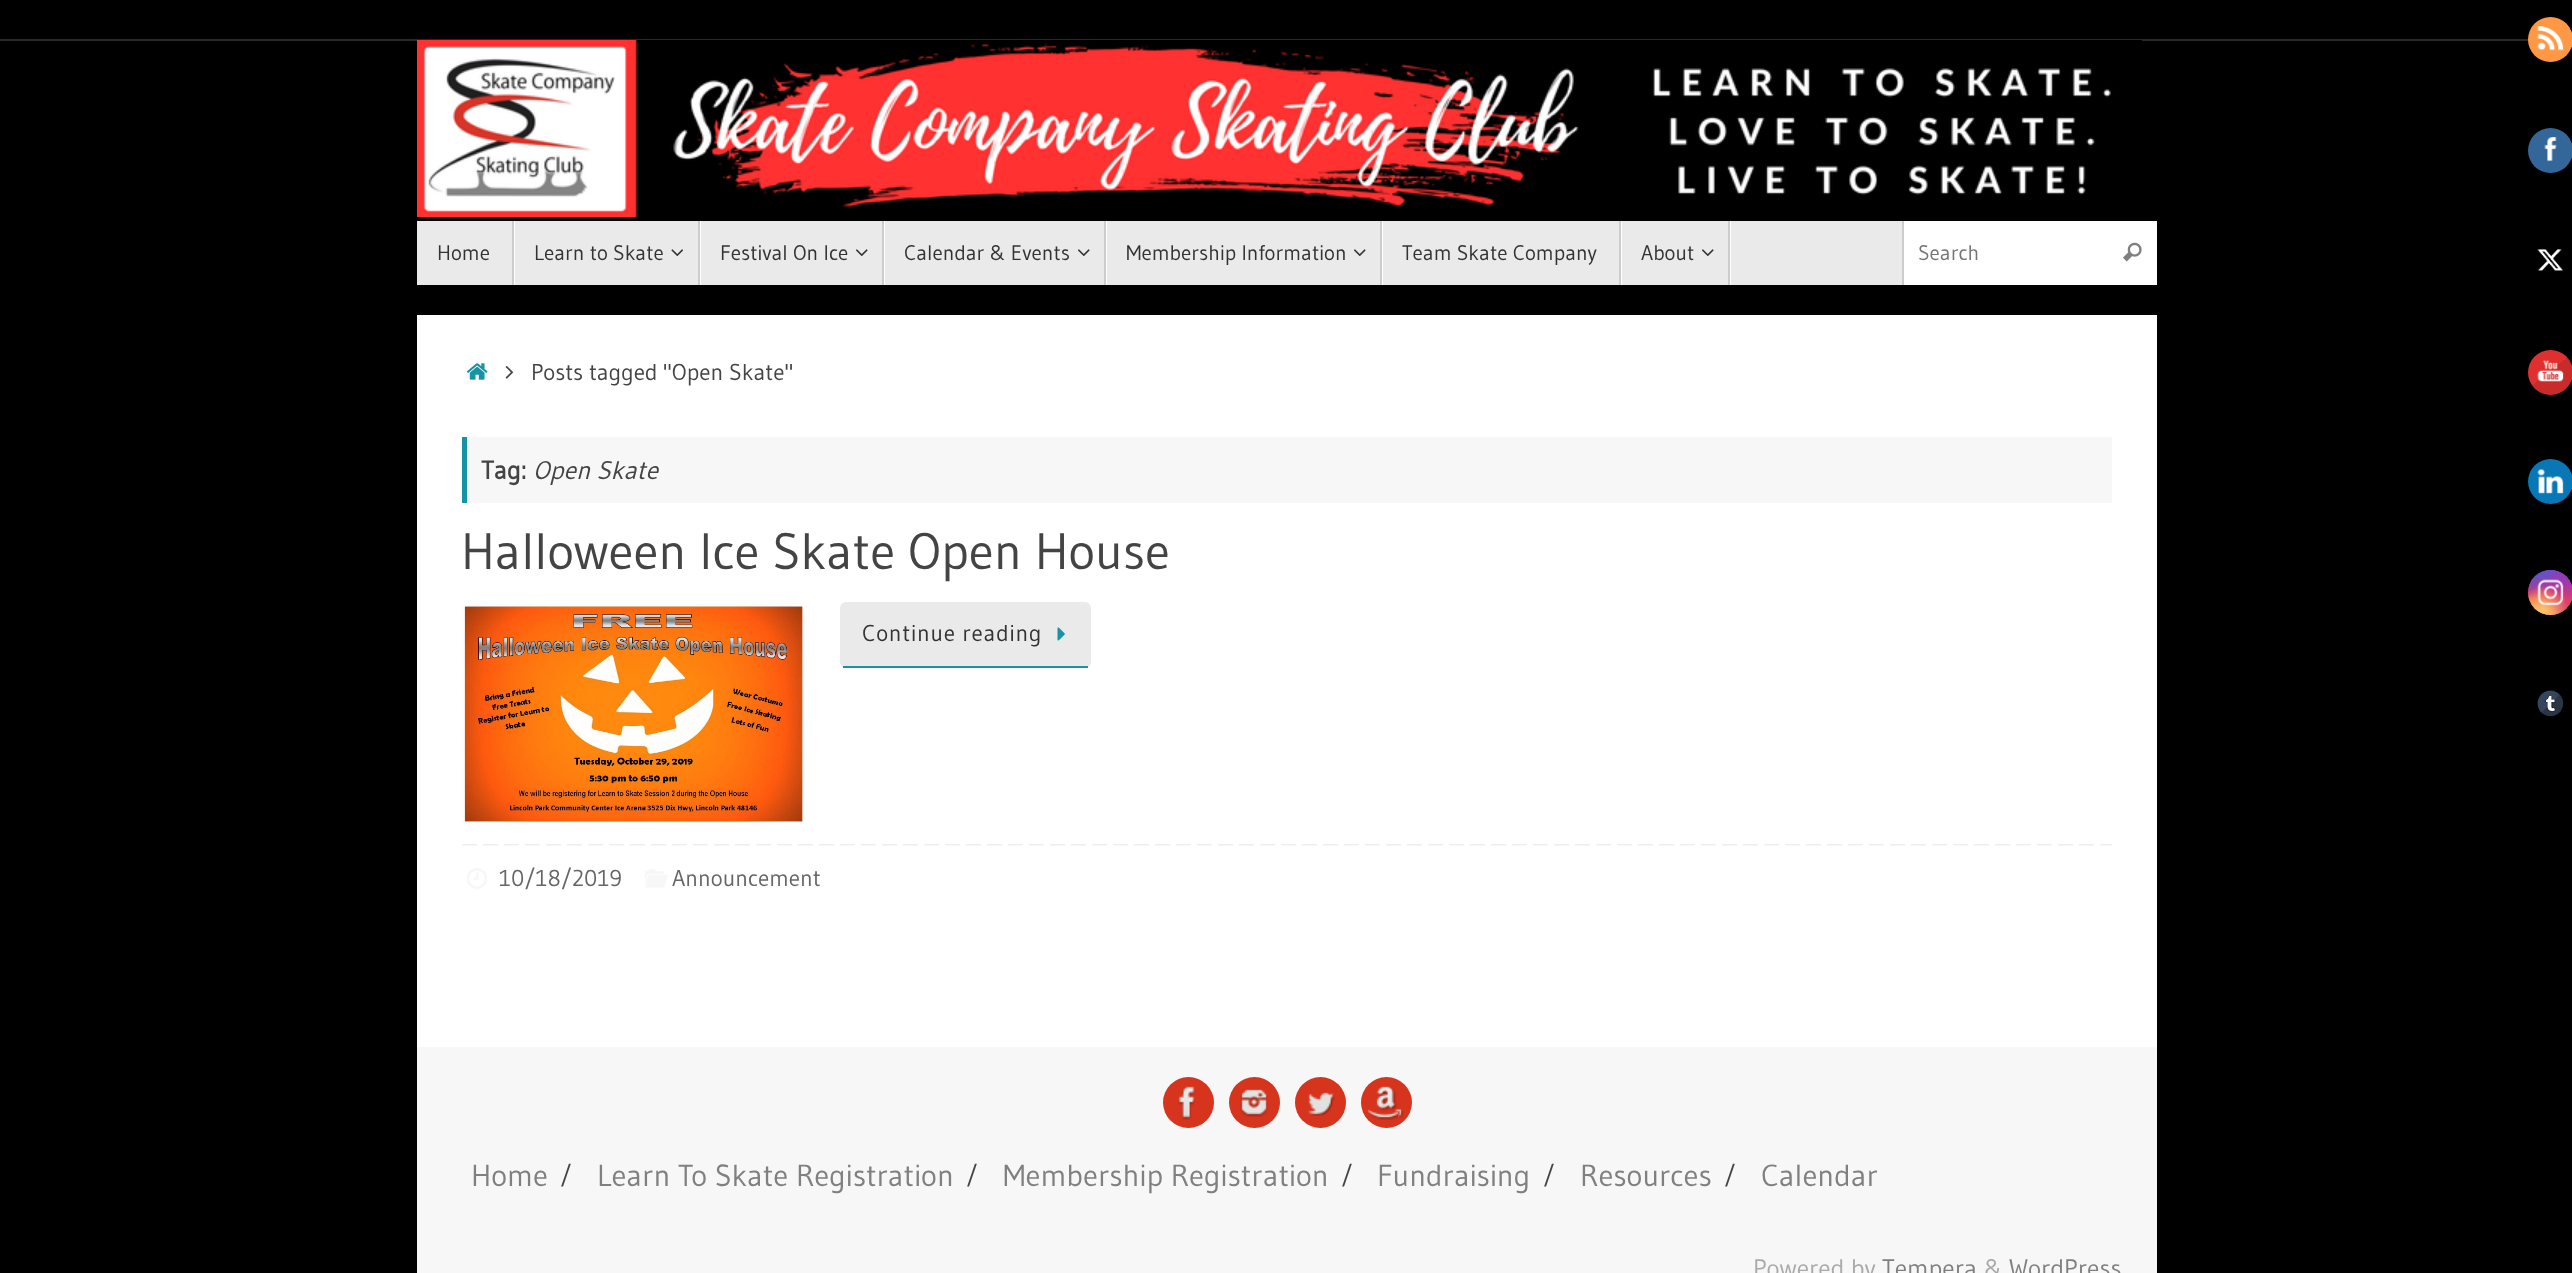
(async () => {
  const canvas = document.querySelector("canvas");
  canvas.width = 2572;
  canvas.height = 1273;
  const ctx = canvas.getContext("2d");
  ctx.miterLimit = 4;
  ctx.fontKerning = "normal";
  async function loadImage(src) {
    const img = new Image();
    img.src = src;
    await img.decode();
    return img;
  }
  let gradient;

  ctx.fillStyle = "#000000";
  ctx.fillRect(0, 0, 2572, 1273);
  ctx.fillStyle = "#282828";
  ctx.fillRect(0, 39, 2529, 2);
  ctx.drawImage(await loadImage("img/1.png"), 417, 40, 1725, 177);
  for (const [x, y, w, h, color] of [
    [417, 221, 1485, 64, "#eaeaea"],
    [514, 221, 1, 64, "#ffffff"],
    [512, 221, 2, 64, "#cccccc"],
    [700, 221, 1, 64, "#ffffff"],
    [698, 221, 2, 64, "#cccccc"],
  ]) {
    ctx.fillStyle = color;
    ctx.fillRect(x, y, w, h);
  }
  ctx.drawImage(await loadImage("img/2.png"), 671, 249, 13, 8);
  ctx.fillStyle = "#ffffff";
  ctx.fillRect(884, 221, 1, 64);
  ctx.fillStyle = "#cccccc";
  ctx.fillRect(882, 221, 2, 64);
  ctx.drawImage(await loadImage("img/3.png"), 856, 249, 12, 8);
  ctx.fillStyle = "#ffffff";
  ctx.fillRect(1106, 221, 1, 64);
  ctx.fillStyle = "#cccccc";
  ctx.fillRect(1104, 221, 2, 64);
  ctx.drawImage(await loadImage("img/3.png"), 1078, 249, 12, 8);
  ctx.fillStyle = "#ffffff";
  ctx.fillRect(1382, 221, 1, 64);
  ctx.fillStyle = "#cccccc";
  ctx.fillRect(1380, 221, 2, 64);
  ctx.drawImage(await loadImage("img/3.png"), 1354, 249, 12, 8);
  for (const [x, y, w, h, color] of [
    [1621, 221, 1, 64, "#ffffff"],
    [1619, 221, 2, 64, "#cccccc"],
    [1730, 221, 1, 64, "#ffffff"],
    [1728, 221, 2, 64, "#cccccc"],
  ]) {
    ctx.fillStyle = color;
    ctx.fillRect(x, y, w, h);
  }
  ctx.drawImage(await loadImage("img/3.png"), 1702, 249, 12, 8);
  ctx.fillStyle = "#ffffff";
  ctx.fillRect(1904, 221, 253, 64);
  ctx.fillStyle = "#cccccc";
  ctx.fillRect(1902, 221, 2, 64);
  ctx.drawImage(await loadImage("img/4.png"), 2123, 242, 19, 20);
  ctx.fillStyle = "#ffffff";
  ctx.fillRect(417, 315, 1740, 732);
  ctx.drawImage(await loadImage("img/5.png"), 466, 363, 22, 17);
  ctx.drawImage(await loadImage("img/6.png"), 505, 365, 9, 14);
  ctx.fillStyle = "#f7f7f7";
  ctx.fillRect(467, 437, 1645, 66);
  ctx.fillStyle = "#1693a5";
  ctx.fillRect(462, 437, 5, 66);
  ctx.drawImage(await loadImage("img/7.png"), 462, 603, 342, 220);
  ctx.fillStyle = "#eaeaea";
  ctx.beginPath();
  ctx.roundRect(840, 602, 251, 66, 6);
  ctx.fill();
  ctx.fillStyle = "#1693a5";
  ctx.fillRect(843, 666, 245, 2);
  ctx.drawImage(await loadImage("img/8.png"), 1057, 627, 8, 14);
  ctx.drawImage(await loadImage("img/9.png"), 462, 844, 1650, 2);
  ctx.drawImage(await loadImage("img/10.png"), 467, 868, 20, 21);
  ctx.drawImage(await loadImage("img/11.png"), 645, 869, 23, 19);
  ctx.fillStyle = "#f7f7f7";
  ctx.fillRect(417, 1047, 1740, 226);
  ctx.fillStyle = "#d6341d";
  ctx.beginPath();
  ctx.arc(1188.5, 1102.5, 25.5, 0, Math.PI * 2);
  ctx.fill();
  ctx.drawImage(await loadImage("img/12.png"), 1178, 1086, 18, 34);
  ctx.beginPath();
  ctx.arc(1254.5, 1102.5, 25.5, 0, Math.PI * 2);
  ctx.fill();
  ctx.drawImage(await loadImage("img/13.png"), 1240, 1089, 28, 28);
  ctx.beginPath();
  ctx.arc(1320.5, 1102.5, 25.5, 0, Math.PI * 2);
  ctx.fill();
  ctx.drawImage(await loadImage("img/14.png"), 1308, 1092, 27, 24);
  ctx.beginPath();
  ctx.arc(1386.5, 1102.5, 25.5, 0, Math.PI * 2);
  ctx.fill();
  ctx.drawImage(await loadImage("img/15.png"), 1367, 1086, 37, 34);
  ctx.fillStyle = "#ff9845";
  ctx.beginPath();
  ctx.arc(2550.5, 39.5, 22.5, 0, Math.PI * 2);
  ctx.fill();
  ctx.drawImage(await loadImage("img/16.png"), 2537, 26, 27, 25);
  ctx.fillStyle = "#336699";
  ctx.beginPath();
  ctx.arc(2550.5, 150.5, 22.5, 0, Math.PI * 2);
  ctx.fill();
  ctx.drawImage(await loadImage("img/17.png"), 2544, 137, 13, 25);
  ctx.drawImage(await loadImage("img/18.png"), 2537, 249, 26, 22);
  gradient = ctx.createLinearGradient(2530, 347, 2570, 397);
  gradient.addColorStop(0.14, "#e02f2f");
  gradient.addColorStop(0.49, "#e02f2f");
  gradient.addColorStop(0.49, "#c92a2a");
  gradient.addColorStop(0.85, "#c92a2a");
  ctx.fillStyle = gradient;
  ctx.beginPath();
  ctx.arc(2550.5, 372.5, 22.5, 0, Math.PI * 2);
  ctx.fill();
  ctx.drawImage(await loadImage("img/19.png"), 2537, 360, 27, 22);
  ctx.fillStyle = "#0877b5";
  ctx.beginPath();
  ctx.arc(2550.5, 481.5, 22.5, 0, Math.PI * 2);
  ctx.fill();
  ctx.drawImage(await loadImage("img/20.png"), 2537, 468, 27, 26);
  gradient = ctx.createLinearGradient(2550, 570, 2550, 615);
  gradient.addColorStop(0, "#6559ca");
  gradient.addColorStop(0.3, "#bc318f");
  gradient.addColorStop(0.5, "#e33f5f");
  gradient.addColorStop(0.7, "#f77638");
  gradient.addColorStop(1, "#fec66d");
  ctx.fillStyle = gradient;
  ctx.beginPath();
  ctx.arc(2550.5, 592.5, 22.5, 0, Math.PI * 2);
  ctx.fill();
  gradient = ctx.createRadialGradient(2573, 615, 0, 2573, 615, 64);
  gradient.addColorStop(0, "#d9317a");
  gradient.addColorStop(1, "rgba(217, 49, 122, 0)");
  ctx.fillStyle = gradient;
  ctx.beginPath();
  ctx.arc(2550.5, 592.5, 22.5, 0, Math.PI * 2);
  ctx.fill();
  gradient = ctx.createRadialGradient(2555, 280.5, 0, 2555, 280.5, 38);
  gradient.addColorStop(0, "#893dc2");
  gradient.addColorStop(0.5, "rgba(137, 61, 194, 0)");
  ctx.fillStyle = gradient;
  ctx.beginPath();
  ctx.arc(2550.5, 592.5, 22.5, 0, Math.PI * 2);
  ctx.save();
  ctx.clip();
  ctx.scale(1, 76 / 38);
  ctx.fillRect(0, 0, 2572, 637);
  ctx.restore();
  gradient = ctx.createRadialGradient(2573, 570, 0, 2573, 570, 64);
  gradient.addColorStop(0, "#893dc2");
  gradient.addColorStop(0.5, "rgba(137, 61, 194, 0)");
  ctx.fillStyle = gradient;
  ctx.beginPath();
  ctx.arc(2550.5, 592.5, 22.5, 0, Math.PI * 2);
  ctx.fill();
  gradient = ctx.createRadialGradient(2537, 294.19, 0, 2537, 294.19, 51);
  gradient.addColorStop(0, "#5258cf");
  gradient.addColorStop(0.5, "rgba(82, 88, 207, 0)");
  ctx.fillStyle = gradient;
  ctx.beginPath();
  ctx.arc(2550.5, 592.5, 22.5, 0, Math.PI * 2);
  ctx.save();
  ctx.clip();
  ctx.scale(1, 95 / 51);
  ctx.fillRect(0, 0, 2572, 684);
  ctx.restore();
  gradient = ctx.createRadialGradient(2528, 447.2, 0, 2528, 447.2, 64);
  gradient.addColorStop(0, "#5258cf");
  gradient.addColorStop(0.5, "rgba(82, 88, 207, 0)");
  ctx.fillStyle = gradient;
  ctx.beginPath();
  ctx.arc(2550.5, 592.5, 22.5, 0, Math.PI * 2);
  ctx.save();
  ctx.clip();
  ctx.scale(1, 80 / 64);
  ctx.fillRect(0, 0, 2572, 1019);
  ctx.restore();
  gradient = ctx.createRadialGradient(2528, 633, 0, 2528, 633, 77);
  gradient.addColorStop(0, "#fec564");
  gradient.addColorStop(0.5, "rgba(254, 197, 100, 0)");
  ctx.fillStyle = gradient;
  ctx.beginPath();
  ctx.arc(2550.5, 592.5, 22.5, 0, Math.PI * 2);
  ctx.fill();
  gradient = ctx.createRadialGradient(2543, 611, 0, 2543, 611, 50);
  gradient.addColorStop(0, "#fec564");
  gradient.addColorStop(0.5, "rgba(254, 197, 100, 0)");
  ctx.fillStyle = gradient;
  ctx.beginPath();
  ctx.arc(2550.5, 592.5, 22.5, 0, Math.PI * 2);
  ctx.fill();
  ctx.drawImage(await loadImage("img/21.png"), 2537, 579, 27, 27);
  ctx.drawImage(await loadImage("img/22.png"), 2537, 690, 27, 27);
  ctx.font = "21px Gudea";
  ctx.fillStyle = "#333333";
  for (const [text, x, y] of [
    ["Home", 437, 260],
    ["Learn to Skate", 534, 260],
    ["Festival On Ice", 720, 260],
    ["Calendar & Events", 904, 260],
    ["Membership Information", 1126, 260],
    ["Team Skate Company", 1402, 260],
    ["About", 1641, 260],
  ]) {
    ctx.fillText(text, x, y);
  }
  ctx.fillStyle = "#757575";
  ctx.fillText("Search", 1918, 260);
  ctx.font = "23px Gudea";
  ctx.fillStyle = "#444444";
  ctx.fillText("Posts tagged \"Open Skate\"", 531, 380);
  ctx.font = "bold 25.5px Gudea";
  ctx.fillText("Tag:", 481, 479);
  ctx.font = "italic 25.5px Gudea";
  ctx.fillText("Open Skate", 533, 479);
  ctx.font = "51px Gudea";
  ctx.fillText("Halloween Ice Skate Open House", 461, 569);
  ctx.letterSpacing = "0.75px";
  ctx.font = "23px Gudea";
  ctx.fillStyle = "#333333";
  ctx.fillText("Continue reading", 862, 641);
  ctx.letterSpacing = "0px";
  ctx.fillStyle = "#666666";
  ctx.fillText("10/18/2019", 499, 886);
  ctx.fillText("Announcement", 672, 886);
  ctx.font = "30.5px Gudea";
  ctx.fillStyle = "#808080";
  ctx.fillText("Home", 471, 1186);
  ctx.font = "24px Gudea";
  ctx.fillStyle = "#444444";
  ctx.fillText("/", 560, 1183);
  ctx.font = "30.5px Gudea";
  ctx.fillStyle = "#808080";
  ctx.fillText("Learn To Skate Registration", 597, 1186);
  ctx.font = "24px Gudea";
  ctx.fillStyle = "#444444";
  ctx.fillText("/", 966, 1183);
  ctx.font = "30.5px Gudea";
  ctx.fillStyle = "#808080";
  ctx.fillText("Membership Registration", 1003, 1186);
  ctx.font = "24px Gudea";
  ctx.fillStyle = "#444444";
  ctx.fillText("/", 1341, 1183);
  ctx.font = "30.5px Gudea";
  ctx.fillStyle = "#808080";
  ctx.fillText("Fundraising", 1377, 1186);
  ctx.font = "24px Gudea";
  ctx.fillStyle = "#444444";
  ctx.fillText("/", 1543, 1183);
  ctx.font = "30.5px Gudea";
  ctx.fillStyle = "#808080";
  ctx.fillText("Resources", 1580, 1186);
  ctx.font = "24px Gudea";
  ctx.fillStyle = "#444444";
  ctx.fillText("/", 1724, 1183);
  ctx.font = "30.5px Gudea";
  ctx.fillStyle = "#808080";
  ctx.fillText("Calendar", 1761, 1186);
  ctx.font = "25.25px Gudea";
  ctx.fillStyle = "#aaaaaa";
  ctx.fillText("Powered by", 1753, 1277);
  ctx.fillStyle = "#808080";
  ctx.fillText("Tempera", 1882, 1277);
  ctx.fillStyle = "#aaaaaa";
  ctx.fillText("&", 1984, 1277);
  ctx.fillStyle = "#808080";
  ctx.fillText("WordPress", 2009, 1277);
})();
